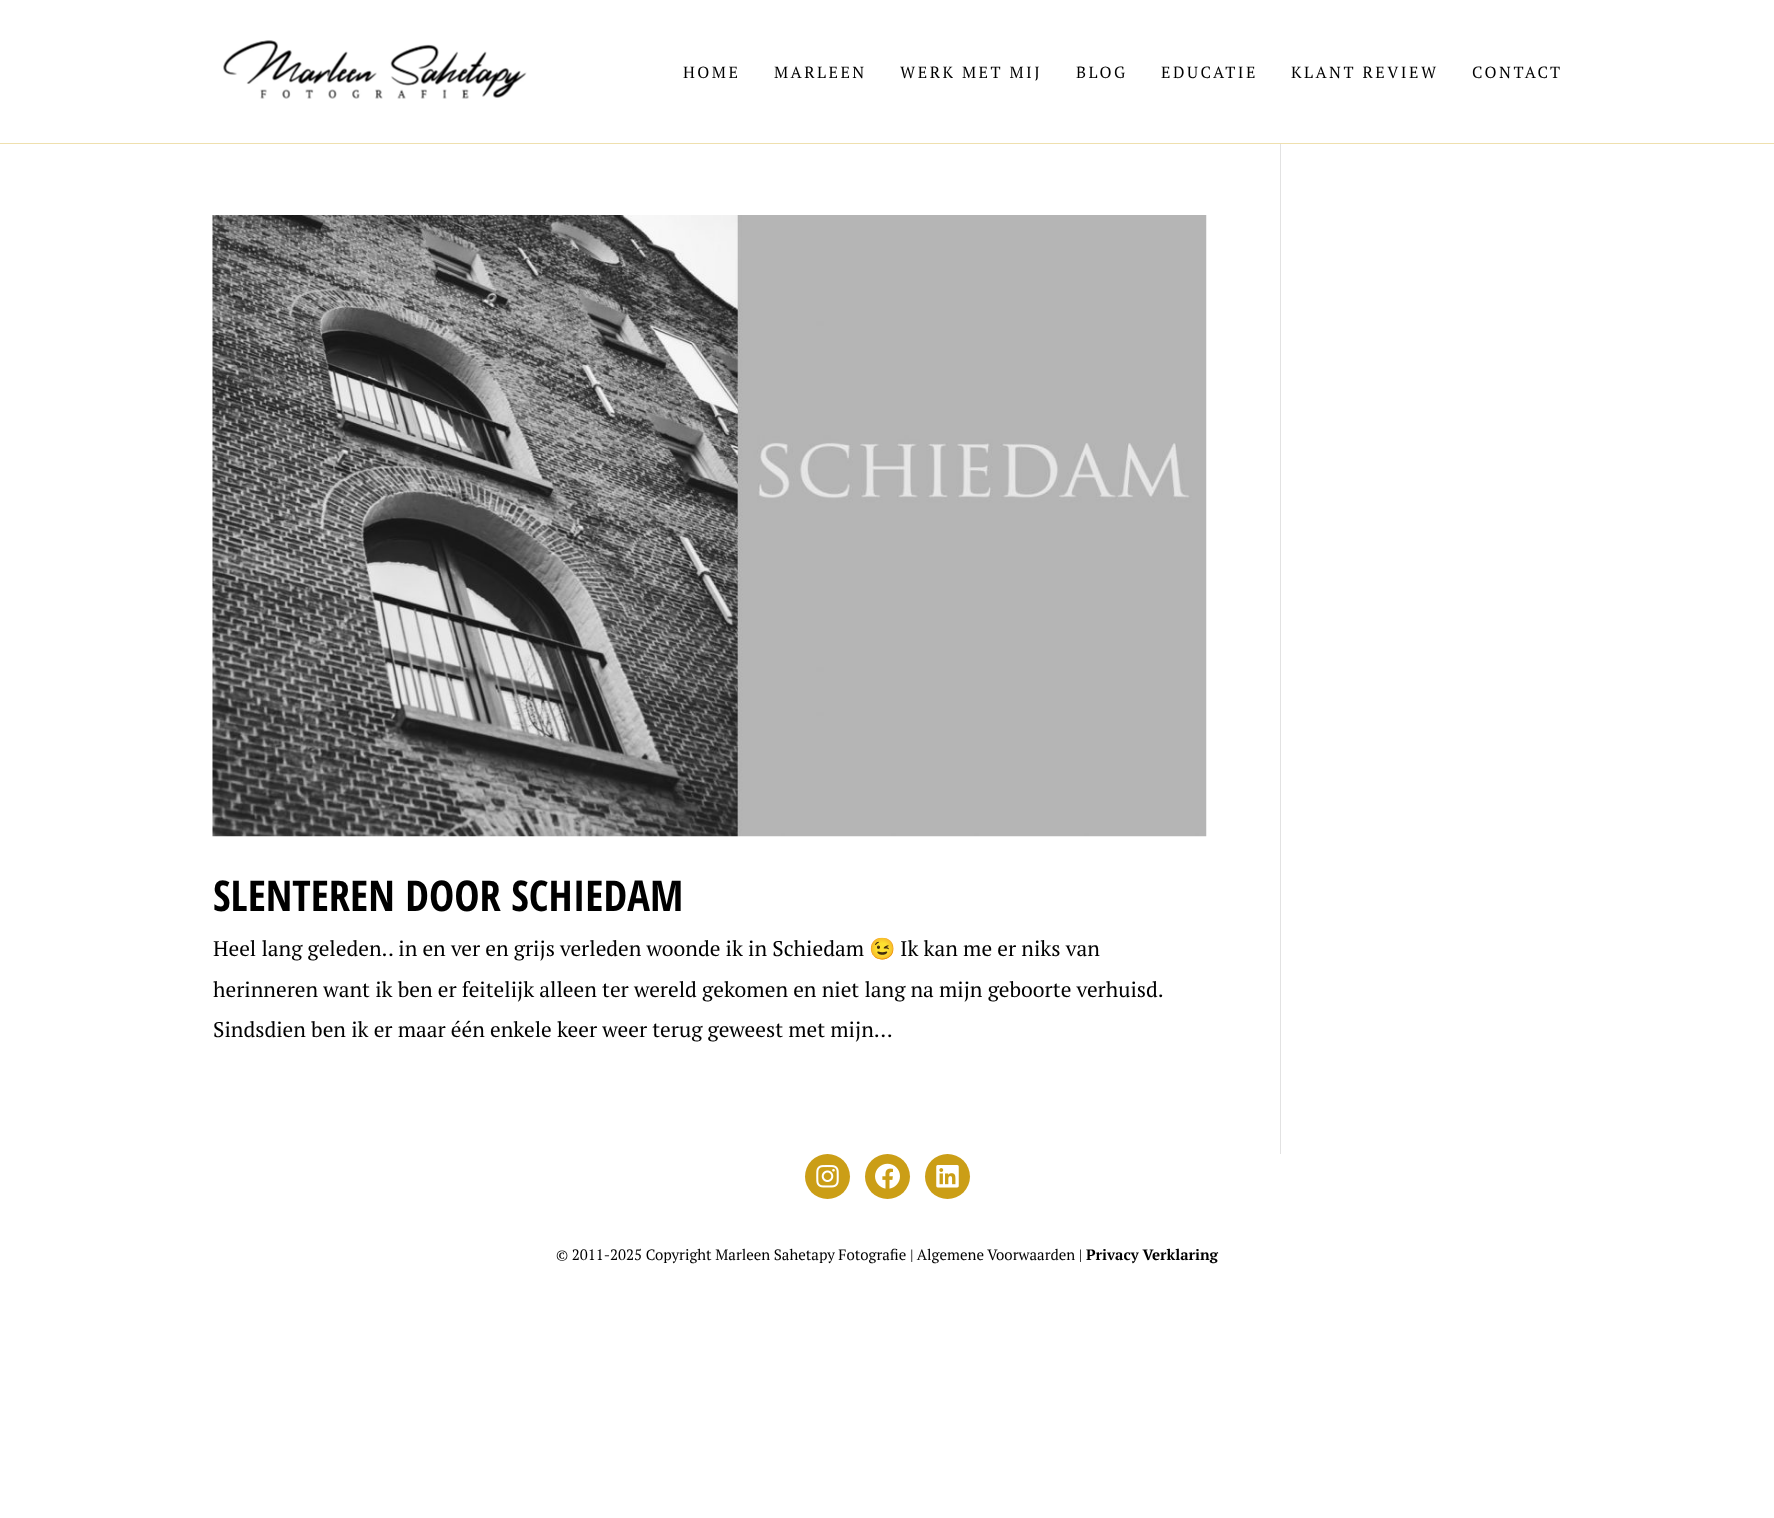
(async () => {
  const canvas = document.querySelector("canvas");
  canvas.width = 1774;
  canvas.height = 1518;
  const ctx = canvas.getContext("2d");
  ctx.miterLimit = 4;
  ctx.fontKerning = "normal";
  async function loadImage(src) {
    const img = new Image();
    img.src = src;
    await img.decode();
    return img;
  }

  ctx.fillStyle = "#ffffff";
  ctx.fillRect(0, 0, 1774, 1518);
  ctx.fillStyle = "#e2e2e2";
  ctx.fillRect(1280, 143, 1, 1011);
  ctx.fillStyle = "#efe0ae";
  ctx.fillRect(0, 143, 1774, 1);
  ctx.drawImage(await loadImage("img/1.png"), 223, 40, 304, 59);
  ctx.drawImage(await loadImage("img/2.png"), 212, 215, 995, 622);
  ctx.fillStyle = "#cb9e16";
  ctx.beginPath();
  ctx.arc(827.5, 1176.5, 22.5, 0, Math.PI * 2);
  ctx.fill();
  ctx.drawImage(await loadImage("img/3.png"), 816, 1165, 23, 23);
  ctx.beginPath();
  ctx.arc(887.5, 1176.5, 22.5, 0, Math.PI * 2);
  ctx.fill();
  ctx.drawImage(await loadImage("img/4.png"), 875, 1163, 25, 26);
  ctx.beginPath();
  ctx.arc(947.5, 1176.5, 22.5, 0, Math.PI * 2);
  ctx.fill();
  ctx.drawImage(await loadImage("img/5.png"), 936, 1165, 23, 23);
  ctx.letterSpacing = "2.5px";
  ctx.font = "16.25px PT Serif";
  ctx.fillStyle = "#000000";
  for (const [text, x, y] of [
    ["HOME", 683, 78],
    ["MARLEEN", 774, 78],
    ["WERK MET MIJ", 900, 78],
    ["BLOG", 1076, 78],
    ["EDUCATIE", 1161, 78],
    ["KLANT REVIEW", 1291, 78],
    ["CONTACT", 1472, 78],
  ]) {
    ctx.fillText(text, x, y);
  }
  ctx.letterSpacing = "0px";
  ctx.font = "bold 42.5px Open Sans Condensed";
  ctx.fillText("SLENTEREN DOOR SCHIEDAM", 213, 911);
  ctx.font = "21.25px PT Serif";
  ctx.fillText("Heel lang geleden.. in en ver en grijs verleden woonde ik in Schiedam", 213, 956);
  ctx.font = "21.25px Noto Color Emoji";
  ctx.fillText("😉", 869, 956);
  ctx.font = "21.25px PT Serif";
  for (const [text, x, y] of [
    ["Ik kan me er niks van", 900, 956],
    ["herinneren want ik ben er feitelijk alleen ter wereld gekomen en niet lang na mijn geboorte verhuisd.", 213, 997],
    ["Sindsdien ben ik er maar één enkele keer weer terug geweest met mijn...", 213, 1037],
  ]) {
    ctx.fillText(text, x, y);
  }
  ctx.font = "15px PT Serif";
  ctx.fillText("© 2011-2025 Copyright Marleen Sahetapy Fotografie | Algemene Voorwaarden |", 556, 1260);
  ctx.font = "bold 15px PT Serif";
  ctx.fillText("Privacy Verklaring", 1086, 1260);
})();
